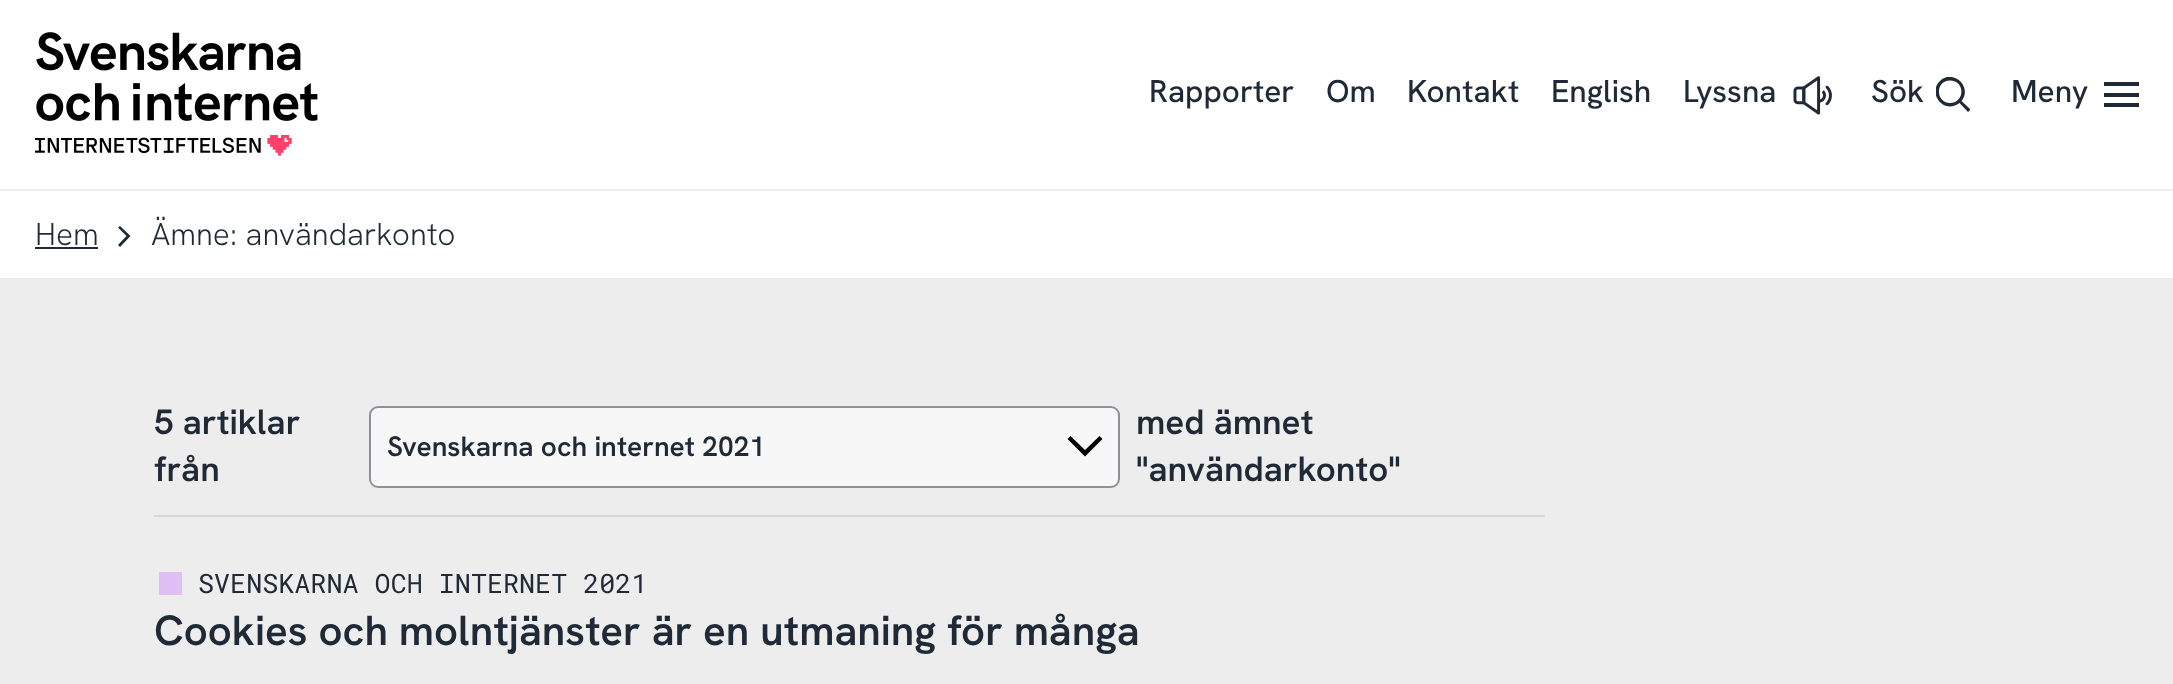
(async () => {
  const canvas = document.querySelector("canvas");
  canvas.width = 2173;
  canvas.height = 684;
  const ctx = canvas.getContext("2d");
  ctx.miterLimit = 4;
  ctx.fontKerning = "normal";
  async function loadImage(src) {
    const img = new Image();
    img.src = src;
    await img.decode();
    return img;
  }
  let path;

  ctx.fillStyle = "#ededed";
  ctx.fillRect(0, 0, 2173, 684);
  ctx.fillStyle = "#ffffff";
  ctx.fillRect(0, 0, 2173, 189);
  ctx.drawImage(await loadImage("img/1.png"), 35, 32, 283, 124);
  ctx.drawImage(await loadImage("img/2.png"), 1793, 76, 39, 39);
  ctx.save();
  ctx.beginPath();
  ctx.rect(1936, 77, 34, 35);
  ctx.clip();
  ctx.fillStyle = "#1f2a36";
  path = new Path2D("M1961.5 101L1970.5 109.5L1968 112L1959.5 103C1944 115 1926 92.5 1941 80C1954.5 69.5 1972.5 87.5 1961.5 101ZM1950 103C1965 103 1965.5 80.5 1950 80.5C1935 80.5 1935.5 103 1950 103Z");
  ctx.fill(path);
  ctx.restore();
  for (const [x, y, w, h, color] of [
    [2104, 93, 35, 4, "#1f2a36"],
    [2104, 82, 35, 4, "#1f2a36"],
    [2104, 103, 35, 4, "#1f2a36"],
    [0, 191, 2173, 87, "#ffffff"],
    [35, 247, 63, 2, "#1f2a36"],
  ]) {
    ctx.fillStyle = color;
    ctx.fillRect(x, y, w, h);
  }
  path = new Path2D("M120 226L130.5 236L120 247L118 245L126.5 236L118 227.5Z");
  ctx.fill(path);
  ctx.fillStyle = "#f7f7f7";
  ctx.beginPath();
  ctx.roundRect(369, 406, 751, 82, 9);
  ctx.fill();
  ctx.fillStyle = "#000000";
  path = new Path2D("M1102.5 439L1085 456.5L1067.5 439L1070.5 436L1085 450L1099.5 436Z");
  ctx.fill(path);
  ctx.beginPath();
  ctx.roundRect(370, 407, 749, 80, 8);
  ctx.strokeStyle = "#8e9297";
  ctx.lineWidth = 2;
  ctx.stroke();
  ctx.fillStyle = "#d8d8d8";
  ctx.fillRect(154, 515, 1391, 2);
  ctx.fillStyle = "#e0bff5";
  ctx.fillRect(159, 572, 23, 23);
  ctx.font = "500 31.5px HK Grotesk";
  ctx.fillStyle = "#1f2a36";
  for (const [text, x, y] of [
    ["Rapporter", 1149, 102],
    ["Om", 1326, 102],
    ["Kontakt", 1407, 102],
    ["English", 1551, 102],
    ["Lyssna", 1683, 102],
    ["Sök", 1871, 102],
    ["Meny", 2011, 102],
  ]) {
    ctx.fillText(text, x, y);
  }
  ctx.font = "300 31.5px HK Grotesk";
  ctx.fillText("Hem", 35, 245);
  ctx.fillText("Ämne: användarkonto", 151, 245);
  ctx.font = "600 35px HK Grotesk";
  ctx.fillText("5 artiklar", 154, 434);
  ctx.fillText("med ämnet", 1136, 434);
  ctx.font = "600 28px HK Grotesk";
  ctx.fillText("Svenskarna och internet 2021", 387, 456);
  ctx.font = "600 35px HK Grotesk";
  ctx.fillText("från", 154, 481);
  ctx.fillText("\"användarkonto\"", 1136, 481);
  ctx.font = "26.75px Roboto Mono";
  ctx.fillText("SVENSKARNA OCH INTERNET 2021", 198, 593);
  ctx.font = "600 42px HK Grotesk";
  ctx.fillText("Cookies och molntjänster är en utmaning för många", 154, 645);
})();
